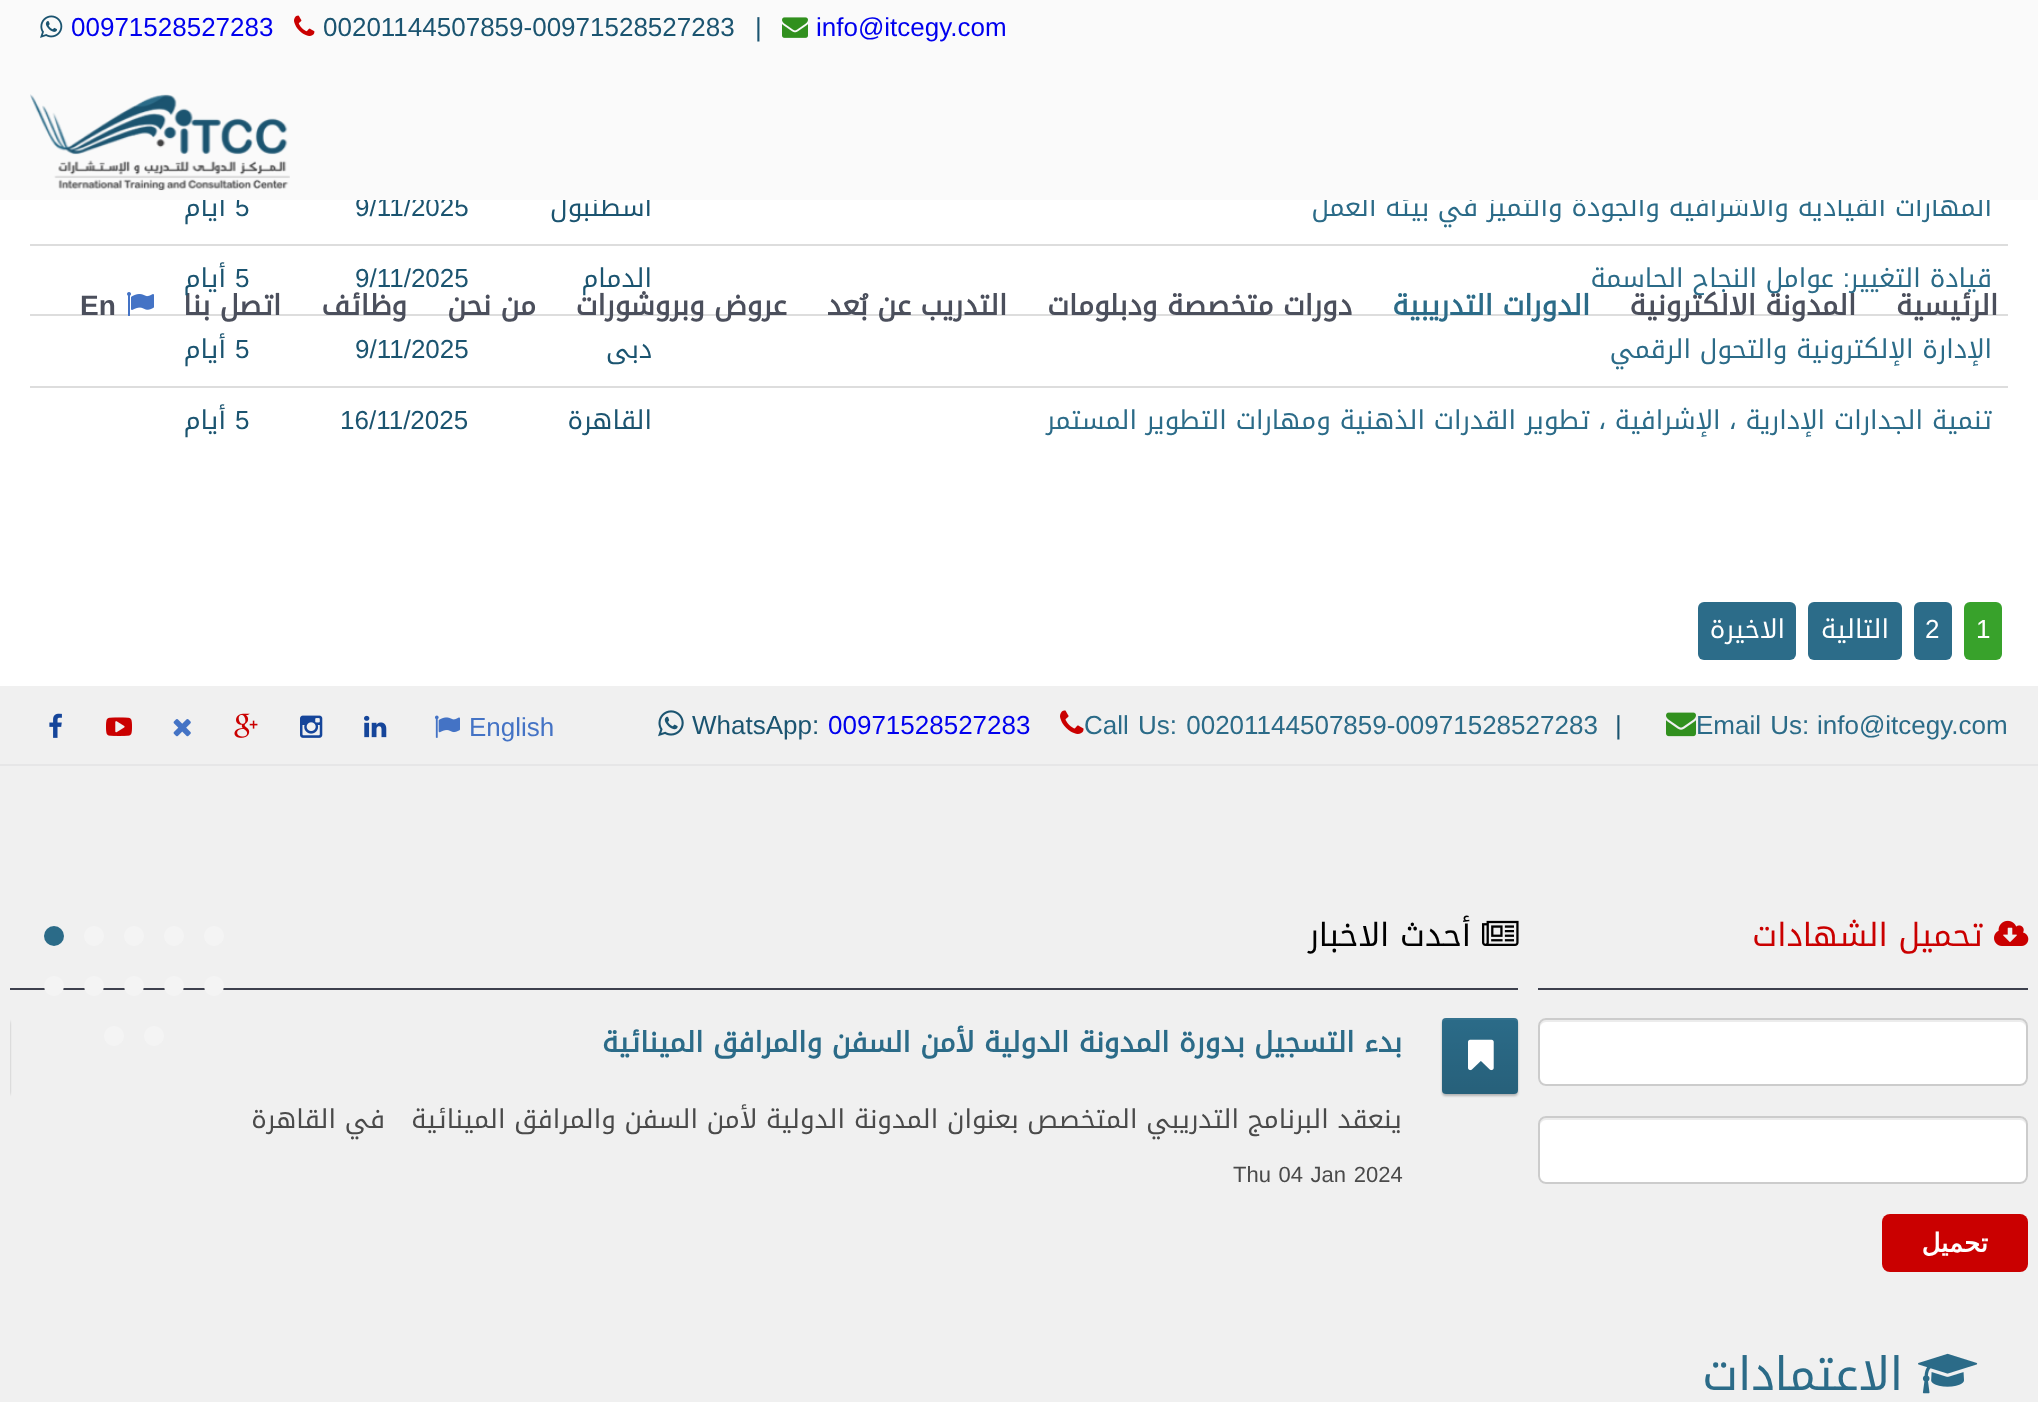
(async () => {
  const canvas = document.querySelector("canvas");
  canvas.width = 2038;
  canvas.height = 1402;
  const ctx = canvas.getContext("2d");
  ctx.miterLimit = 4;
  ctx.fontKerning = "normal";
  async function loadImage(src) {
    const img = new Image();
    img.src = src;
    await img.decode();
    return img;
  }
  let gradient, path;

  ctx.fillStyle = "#ffffff";
  ctx.fillRect(0, 0, 2038, 1402);
  ctx.fillStyle = "#dddddd";
  ctx.fillRect(30, 314, 1978, 2);
  ctx.drawImage(await loadImage("img/5.png"), 127, 292, 27, 24);
  ctx.fillRect(30, 244, 1978, 2);
  ctx.fillRect(30, 386, 1978, 2);
  ctx.fillStyle = "#38a22b";
  ctx.beginPath();
  ctx.roundRect(1964, 602, 38, 58, 6);
  ctx.fill();
  ctx.fillStyle = "#2c6c89";
  ctx.beginPath();
  ctx.roundRect(1914, 602, 38, 58, 6);
  ctx.fill();
  ctx.beginPath();
  ctx.roundRect(1808, 602, 94, 58, 6);
  ctx.fill();
  ctx.beginPath();
  ctx.roundRect(1698, 602, 98, 58, 6);
  ctx.fill();
  ctx.fillStyle = "#f0f0f0";
  ctx.fillRect(0, 686, 2038, 78);
  ctx.fillStyle = "#e6e6e7";
  ctx.fillRect(0, 764, 2038, 2);
  ctx.drawImage(await loadImage("img/6.png"), 1666, 712, 30, 25);
  ctx.drawImage(await loadImage("img/7.png"), 1060, 710, 24, 24);
  ctx.drawImage(await loadImage("img/8.png"), 658, 710, 26, 27);
  ctx.drawImage(await loadImage("img/9.png"), 434, 715, 26, 23);
  ctx.drawImage(await loadImage("img/10.png"), 364, 715, 23, 23);
  ctx.drawImage(await loadImage("img/11.png"), 300, 715, 23, 23);
  ctx.drawImage(await loadImage("img/12.png"), 234, 713, 24, 25);
  ctx.drawImage(await loadImage("img/13.png"), 173, 719, 18, 18);
  ctx.drawImage(await loadImage("img/14.png"), 106, 717, 26, 19);
  ctx.drawImage(await loadImage("img/15.png"), 49, 713, 13, 25);
  ctx.fillStyle = "#f0f0f0";
  ctx.fillRect(0, 766, 2038, 636);
  ctx.fillStyle = "#3d404d";
  ctx.fillRect(1538, 988, 490, 2);
  ctx.drawImage(await loadImage("img/16.png"), 1994, 920, 35, 26);
  ctx.fillStyle = "#ffffff";
  ctx.beginPath();
  ctx.roundRect(1538, 1018, 490, 68, 8);
  ctx.fill();
  ctx.fillStyle = "#ececec";
  path = new Path2D("M1546 1022H2020C2023 1022 2026 1025 2026 1028C2026 1024 2025 1020 2020 1020H1546C1541 1020 1540 1024 1540 1028C1540 1025 1543 1022 1546 1022Z");
  ctx.fill(path);
  ctx.beginPath();
  ctx.roundRect(1539, 1019, 488, 66, 7);
  ctx.strokeStyle = "#cccccc";
  ctx.lineWidth = 2;
  ctx.stroke();
  ctx.fillStyle = "#ffffff";
  ctx.beginPath();
  ctx.roundRect(1538, 1116, 490, 68, 8);
  ctx.fill();
  ctx.fillStyle = "#ececec";
  path = new Path2D("M1546 1120H2020C2023 1120 2026 1123 2026 1126C2026 1122 2025 1118 2020 1118H1546C1541 1118 1540 1122 1540 1126C1540 1123 1543 1120 1546 1120Z");
  ctx.fill(path);
  ctx.beginPath();
  ctx.roundRect(1539, 1117, 488, 66, 7);
  ctx.stroke();
  ctx.fillStyle = "#ca0000";
  ctx.beginPath();
  ctx.roundRect(1882, 1214, 146, 58, 8);
  ctx.fill();
  ctx.fillStyle = "#3d404d";
  ctx.fillRect(10, 988, 1508, 2);
  ctx.drawImage(await loadImage("img/17.png"), 1482, 920, 37, 26);
  ctx.fillStyle = "#f4f4f4";
  ctx.beginPath();
  ctx.arc(214, 936, 10, 0, Math.PI * 2);
  ctx.fill();
  ctx.beginPath();
  ctx.arc(174, 936, 10, 0, Math.PI * 2);
  ctx.fill();
  ctx.beginPath();
  ctx.arc(134, 936, 10, 0, Math.PI * 2);
  ctx.fill();
  ctx.beginPath();
  ctx.arc(94, 936, 10, 0, Math.PI * 2);
  ctx.fill();
  ctx.fillStyle = "#2b6b88";
  ctx.beginPath();
  ctx.arc(54, 936, 10, 0, Math.PI * 2);
  ctx.fill();
  ctx.fillStyle = "#f4f4f4";
  ctx.beginPath();
  ctx.arc(214, 986, 10, 0, Math.PI * 2);
  ctx.fill();
  ctx.beginPath();
  ctx.arc(174, 986, 10, 0, Math.PI * 2);
  ctx.fill();
  ctx.beginPath();
  ctx.arc(134, 986, 10, 0, Math.PI * 2);
  ctx.fill();
  ctx.beginPath();
  ctx.arc(94, 986, 10, 0, Math.PI * 2);
  ctx.fill();
  ctx.beginPath();
  ctx.arc(54, 986, 10, 0, Math.PI * 2);
  ctx.fill();
  ctx.beginPath();
  ctx.arc(154, 1036, 10, 0, Math.PI * 2);
  ctx.fill();
  ctx.beginPath();
  ctx.arc(114, 1036, 10, 0, Math.PI * 2);
  ctx.fill();
  ctx.save();
  path = new Path2D("M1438 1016H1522V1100H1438ZM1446 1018H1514C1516 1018 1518 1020 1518 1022V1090C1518 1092 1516 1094 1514 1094H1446C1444 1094 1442 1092 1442 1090V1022C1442 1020 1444 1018 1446 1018Z");
  ctx.clip(path, "evenodd");
  ctx.fillStyle = "rgba(0, 0, 0, 0.25)";
  ctx.filter = "blur(1px)";
  ctx.beginPath();
  ctx.roundRect(1442, 1020, 76, 76, 4);
  ctx.fill();
  ctx.filter = "none";
  ctx.restore();
  ctx.fillStyle = "#2b6b88";
  ctx.beginPath();
  ctx.roundRect(1442, 1018, 76, 76, 4);
  ctx.fill();
  gradient = ctx.createLinearGradient(1480, 1094, 1480, 1018);
  gradient.addColorStop(0, "rgba(0, 0, 0, 0.1)");
  gradient.addColorStop(1, "rgba(0, 0, 0, 0)");
  ctx.fillStyle = gradient;
  ctx.beginPath();
  ctx.roundRect(1442, 1018, 76, 76, 4);
  ctx.fill();
  ctx.fillStyle = "rgba(255, 255, 255, 0.05)";
  path = new Path2D("M1446 1020H1514C1516 1020 1518 1022 1518 1024C1518 1015 1511 1018 1503 1018H1457C1449 1018 1442 1015 1442 1024C1442 1022 1444 1020 1446 1020Z");
  ctx.fill(path);
  ctx.drawImage(await loadImage("img/18.png"), 1468, 1039, 26, 32);
  ctx.save();
  ctx.beginPath();
  ctx.rect(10, 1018, 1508, 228);
  ctx.clip();
  ctx.fillStyle = "rgba(0, 0, 0, 0.25)";
  ctx.filter = "blur(1px)";
  ctx.beginPath();
  ctx.roundRect(-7, 1020, 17, 76, 4);
  ctx.fill();
  ctx.filter = "none";
  ctx.restore();
  ctx.drawImage(await loadImage("img/19.png"), 1918, 1353, 60, 41);
  ctx.direction = "rtl";
  ctx.font = "bold 28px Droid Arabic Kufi";
  ctx.fillStyle = "#4b4f5c";
  ctx.fillText("الرئيسية", 1998, 315);
  ctx.fillText("المدونة الالكترونية", 1856, 315);
  ctx.fillStyle = "#2b6b88";
  ctx.fillText("الدورات التدريبية", 1590, 315);
  ctx.fillStyle = "#4b4f5c";
  for (const [text, x, y] of [
    ["دورات متخصصة ودبلومات", 1352, 315],
    ["التدريب عن بُعد", 1007, 315],
    ["عروض وبروشورات", 787, 315],
    ["من نحن", 536, 315],
    ["وظائف", 407, 315],
    ["اتصل بنا", 281, 315],
  ]) {
    ctx.fillText(text, x, y);
  }
  ctx.direction = "ltr";
  ctx.font = "bold 28px Liberation Sans";
  ctx.fillText("En", 80, 315);
  ctx.direction = "rtl";
  ctx.font = "26px Droid Arabic Kufi";
  ctx.fillStyle = "#2b6b88";
  ctx.fillText("المهارات القيادية والاشرافية والجودة والتميز في بيئة العمل", 1992, 216);
  ctx.fillStyle = "#1b5470";
  ctx.fillText("اسطنبول", 652, 216);
  ctx.direction = "ltr";
  ctx.font = "26px Liberation Sans";
  ctx.fillText("9/11/2025", 355, 216);
  ctx.fillText("5", 235, 216);
  ctx.direction = "rtl";
  ctx.font = "26px Droid Arabic Kufi";
  ctx.fillText("أيام", 226, 216);
  ctx.fillStyle = "#fafafa";
  ctx.fillRect(0, 0, 2038, 200);
  ctx.drawImage(await loadImage("img/4.png"), 30, 94, 260, 97);
  ctx.direction = "ltr";
  ctx.font = "26px Liberation Sans";
  ctx.fillStyle = "#0000ee";
  ctx.fillText("info@itcegy.com", 816, 36);
  ctx.drawImage(await loadImage("img/1.png"), 782, 17, 26, 21);
  ctx.fillStyle = "#1b5470";
  ctx.fillText("|", 755, 36);
  ctx.fillText("00201144507859-00971528527283", 323, 36);
  ctx.drawImage(await loadImage("img/2.png"), 294, 15, 21, 21);
  ctx.fillStyle = "#0000ee";
  ctx.fillText("00971528527283", 71, 36);
  ctx.drawImage(await loadImage("img/3.png"), 40, 15, 23, 23);
  ctx.direction = "rtl";
  ctx.font = "26px Droid Arabic Kufi";
  ctx.fillStyle = "#2b6b88";
  ctx.fillText("قيادة التغيير", 1992, 287);
  ctx.font = "26px Liberation Sans";
  ctx.fillText(":", 1850, 287);
  ctx.font = "26px Droid Arabic Kufi";
  ctx.fillText("عوامل النجاح الحاسمة", 1834, 287);
  ctx.fillStyle = "#1b5470";
  ctx.fillText("الدمام", 652, 287);
  ctx.direction = "ltr";
  ctx.font = "26px Liberation Sans";
  ctx.fillText("9/11/2025", 355, 287);
  ctx.fillText("5", 235, 287);
  ctx.direction = "rtl";
  ctx.font = "26px Droid Arabic Kufi";
  ctx.fillText("أيام", 226, 287);
  ctx.fillStyle = "#2b6b88";
  ctx.fillText("الإدارة الإلكترونية والتحول الرقمي", 1992, 358);
  ctx.fillStyle = "#1b5470";
  ctx.fillText("دبى", 652, 358);
  ctx.direction = "ltr";
  ctx.font = "26px Liberation Sans";
  ctx.fillText("9/11/2025", 355, 358);
  ctx.fillText("5", 235, 358);
  ctx.direction = "rtl";
  ctx.font = "26px Droid Arabic Kufi";
  ctx.fillText("أيام", 226, 358);
  ctx.fillStyle = "#2b6b88";
  ctx.fillText("تنمية الجدارات الإدارية ، الإشرافية ، تطوير القدرات الذهنية ومهارات التطوير المستمر", 1992, 429);
  ctx.fillStyle = "#1b5470";
  ctx.fillText("القاهرة", 652, 429);
  ctx.direction = "ltr";
  ctx.font = "26px Liberation Sans";
  ctx.fillText("16/11/2025", 340, 429);
  ctx.fillText("5", 235, 429);
  ctx.direction = "rtl";
  ctx.font = "26px Droid Arabic Kufi";
  ctx.fillText("أيام", 226, 429);
  ctx.direction = "ltr";
  ctx.font = "26px Liberation Sans";
  ctx.fillStyle = "#ffffff";
  ctx.fillText("1", 1976, 638);
  ctx.fillText("2", 1925, 638);
  ctx.direction = "rtl";
  ctx.font = "26px Droid Arabic Kufi";
  ctx.fillText("التالية", 1889, 638);
  ctx.fillText("الاخيرة", 1785, 638);
  ctx.direction = "ltr";
  ctx.font = "26px Liberation Sans";
  ctx.fillStyle = "#2b6b88";
  ctx.fillText("info@itcegy.com", 1817, 734);
  ctx.wordSpacing = "2px";
  ctx.fillText("Email Us:", 1696, 734);
  ctx.wordSpacing = "0px";
  ctx.fillStyle = "#1b5470";
  ctx.fillText("|", 1615, 734);
  ctx.wordSpacing = "2px";
  ctx.fillStyle = "#2b6b88";
  ctx.fillText("Call Us: 00201144507859-00971528527283", 1084, 734);
  ctx.wordSpacing = "0px";
  ctx.fillStyle = "#0000ee";
  ctx.fillText("00971528527283", 828, 734);
  ctx.fillStyle = "#1b5470";
  ctx.fillText("WhatsApp:", 692, 734);
  ctx.fillStyle = "#4473c5";
  ctx.fillText("English", 469, 736);
  ctx.direction = "rtl";
  ctx.font = "32px Droid Arabic Kufi";
  ctx.fillStyle = "#ca0000";
  ctx.fillText("تحميل الشهادات", 1983, 946);
  ctx.font = "bold 26px DejaVu Sans";
  ctx.fillStyle = "#ffffff";
  ctx.fillText("تحميل", 1988, 1252);
  ctx.font = "32px Droid Arabic Kufi";
  ctx.fillStyle = "#000000";
  ctx.fillText("أحدث الاخبار", 1471, 946);
  ctx.font = "bold 28px Droid Arabic Kufi";
  ctx.fillStyle = "#2b6b88";
  ctx.fillText("بدء التسجيل بدورة المدونة الدولية لأمن السفن والمرافق المينائية", 1402, 1052);
  ctx.font = "26px Droid Arabic Kufi";
  ctx.fillStyle = "#4a4a4a";
  ctx.fillText("ينعقد البرنامج التدريبي المتخصص بعنوان المدونة الدولية لأمن السفن والمرافق المينائية", 1402, 1128);
  ctx.fillText("في القاهرة", 385, 1128);
  ctx.wordSpacing = "1.5px";
  ctx.direction = "ltr";
  ctx.font = "22px Liberation Sans";
  ctx.fillText("Thu 04 Jan 2024", 1233, 1182);
  ctx.wordSpacing = "0px";
  ctx.direction = "rtl";
  ctx.font = "46px Droid Arabic Kufi";
  ctx.fillStyle = "#2b6b88";
  ctx.fillText("الاعتمادات", 1903, 1390);
})();
